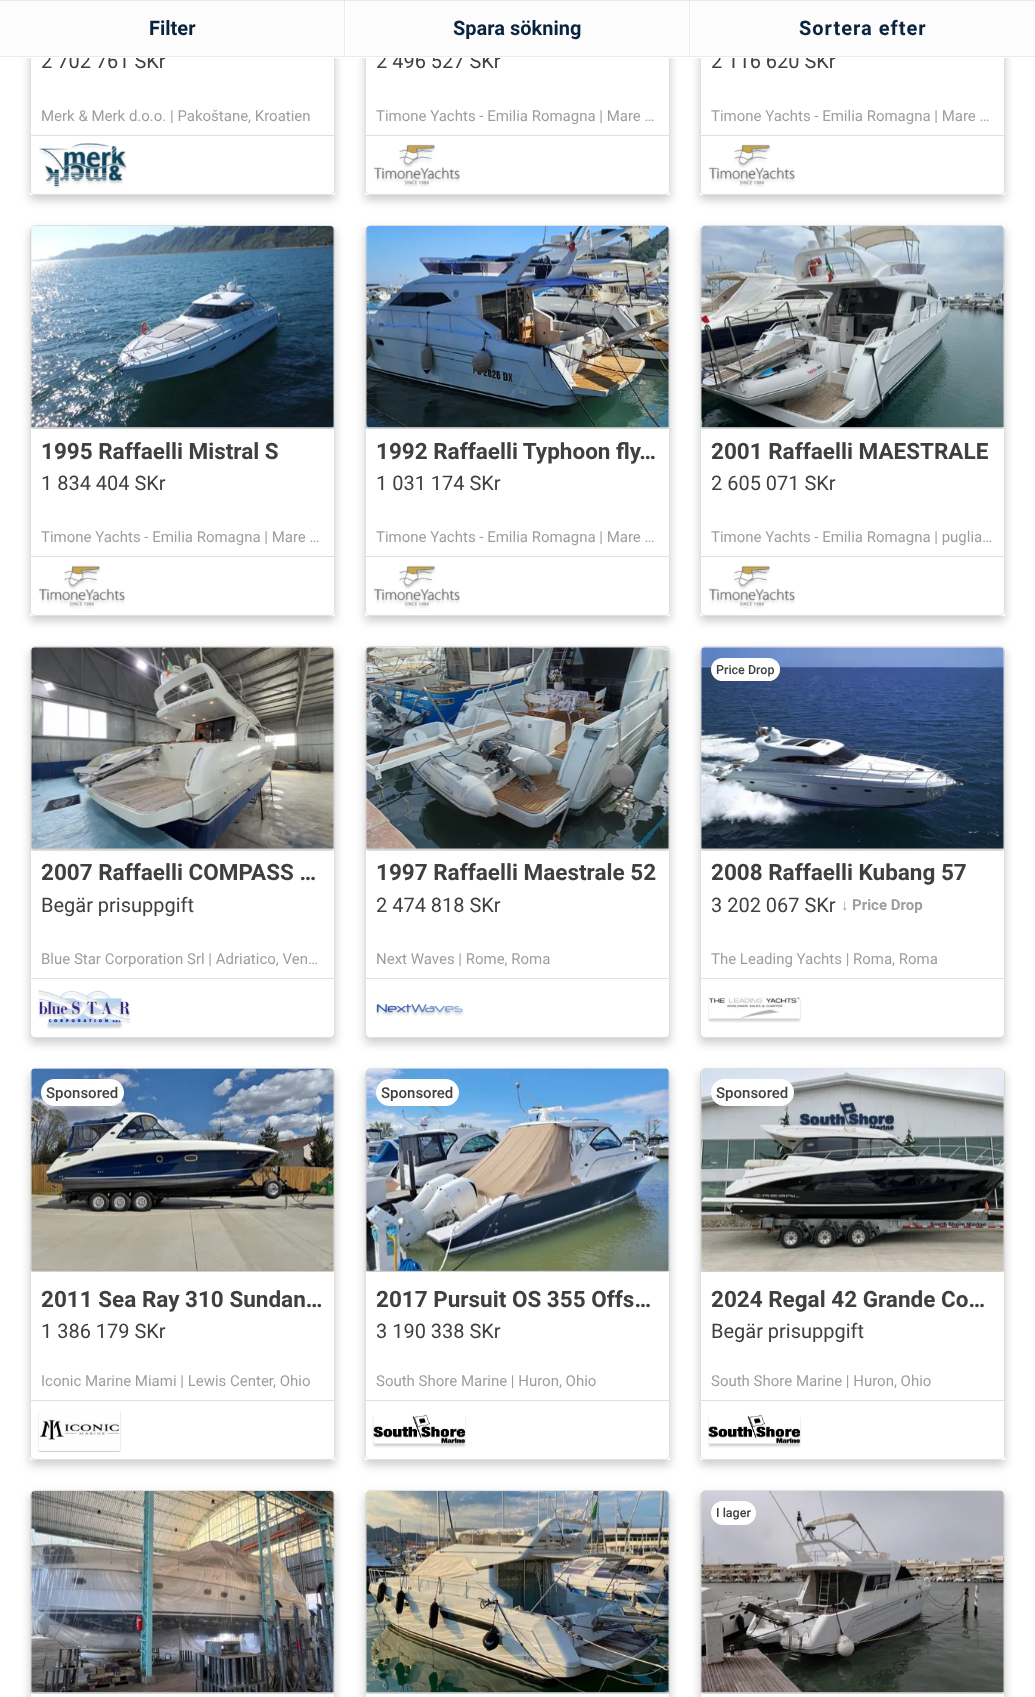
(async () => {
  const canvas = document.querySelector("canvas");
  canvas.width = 1035;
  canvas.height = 1697;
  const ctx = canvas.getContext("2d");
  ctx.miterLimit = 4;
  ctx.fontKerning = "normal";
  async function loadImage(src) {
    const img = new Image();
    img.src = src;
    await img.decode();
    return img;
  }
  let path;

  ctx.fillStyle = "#ffffff";
  ctx.fillRect(0, 0, 1035, 1697);
  ctx.save();
  path = new Path2D("M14 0H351V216H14ZM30-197H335V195H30Z");
  ctx.clip(path, "evenodd");
  ctx.fillStyle = "rgba(0, 0, 0, 0.2)";
  ctx.filter = "blur(5px)";
  ctx.beginPath();
  ctx.rect(30, -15, 305, 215);
  ctx.fill();
  ctx.filter = "none";
  ctx.restore();
  ctx.beginPath();
  ctx.roundRect(30.5, -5.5, 304, 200, 4.5);
  ctx.strokeStyle = "#e0e0e0";
  ctx.stroke();
  ctx.save();
  path = new Path2D("M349 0H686V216H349ZM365-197H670V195H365Z");
  ctx.clip(path, "evenodd");
  ctx.fillStyle = "rgba(0, 0, 0, 0.2)";
  ctx.filter = "blur(5px)";
  ctx.beginPath();
  ctx.rect(365, -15, 305, 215);
  ctx.fill();
  ctx.filter = "none";
  ctx.restore();
  ctx.beginPath();
  ctx.roundRect(365.5, -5.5, 304, 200, 4.5);
  ctx.stroke();
  ctx.save();
  path = new Path2D("M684 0H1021V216H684ZM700-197H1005V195H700Z");
  ctx.clip(path, "evenodd");
  ctx.fillStyle = "rgba(0, 0, 0, 0.2)";
  ctx.filter = "blur(5px)";
  ctx.beginPath();
  ctx.rect(700, -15, 305, 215);
  ctx.fill();
  ctx.filter = "none";
  ctx.restore();
  ctx.beginPath();
  ctx.roundRect(700.5, -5.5, 304, 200, 4.5);
  ctx.stroke();
  for (const [x, y, w, h, color] of [
    [0, 0, 1035, 1, "#eaeaea"],
    [344, 1, 1, 55, "#eaeaea"],
    [689, 1, 1, 55, "#eaeaea"],
    [31, 135, 303, 1, "#e0e0e0"],
  ]) {
    ctx.fillStyle = color;
    ctx.fillRect(x, y, w, h);
  }
  ctx.drawImage(await loadImage("img/1.png"), 39, 143, 88, 45);
  ctx.fillRect(366, 135, 303, 1);
  ctx.drawImage(await loadImage("img/2.png"), 373, 144, 87, 43);
  ctx.fillRect(701, 135, 303, 1);
  ctx.drawImage(await loadImage("img/2.png"), 708, 144, 87, 43);
  ctx.save();
  path = new Path2D("M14 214H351V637H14ZM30 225H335V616H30Z");
  ctx.clip(path, "evenodd");
  ctx.fillStyle = "rgba(0, 0, 0, 0.2)";
  ctx.filter = "blur(5px)";
  ctx.beginPath();
  ctx.rect(30, 230, 305, 391);
  ctx.fill();
  ctx.filter = "none";
  ctx.restore();
  ctx.beginPath();
  ctx.roundRect(30.5, 225.5, 304, 390, 4.5);
  ctx.stroke();
  ctx.drawImage(await loadImage("img/3.png"), 30, 226, 305, 203);
  ctx.fillRect(31, 556, 303, 1);
  ctx.drawImage(await loadImage("img/4.png"), 38, 565, 87, 44);
  ctx.save();
  path = new Path2D("M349 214H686V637H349ZM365 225H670V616H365Z");
  ctx.clip(path, "evenodd");
  ctx.fillStyle = "rgba(0, 0, 0, 0.2)";
  ctx.filter = "blur(5px)";
  ctx.beginPath();
  ctx.rect(365, 230, 305, 391);
  ctx.fill();
  ctx.filter = "none";
  ctx.restore();
  ctx.beginPath();
  ctx.roundRect(365.5, 225.5, 304, 390, 4.5);
  ctx.stroke();
  ctx.drawImage(await loadImage("img/5.png"), 365, 226, 305, 203);
  ctx.fillRect(366, 556, 303, 1);
  ctx.drawImage(await loadImage("img/4.png"), 373, 565, 87, 44);
  ctx.save();
  path = new Path2D("M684 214H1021V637H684ZM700 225H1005V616H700Z");
  ctx.clip(path, "evenodd");
  ctx.fillStyle = "rgba(0, 0, 0, 0.2)";
  ctx.filter = "blur(5px)";
  ctx.beginPath();
  ctx.rect(700, 230, 305, 391);
  ctx.fill();
  ctx.filter = "none";
  ctx.restore();
  ctx.beginPath();
  ctx.roundRect(700.5, 225.5, 304, 390, 4.5);
  ctx.stroke();
  ctx.drawImage(await loadImage("img/6.png"), 700, 226, 305, 203);
  ctx.fillRect(701, 556, 303, 1);
  ctx.drawImage(await loadImage("img/4.png"), 708, 565, 87, 44);
  ctx.fillStyle = "rgba(0, 0, 0, 0.2)";
  ctx.filter = "blur(5px)";
  ctx.beginPath();
  ctx.rect(30, 651, 305, 392);
  ctx.fill();
  ctx.filter = "none";
  ctx.fillStyle = "#ffffff";
  ctx.beginPath();
  ctx.roundRect(30.5, 646.5, 304, 391, 4.5);
  ctx.fill();
  ctx.stroke();
  ctx.drawImage(await loadImage("img/7.png"), 30, 647, 305, 204);
  ctx.fillStyle = "#e0e0e0";
  ctx.fillRect(31, 978, 303, 1);
  ctx.drawImage(await loadImage("img/8.png"), 38, 990, 93, 39);
  ctx.fillStyle = "rgba(0, 0, 0, 0.2)";
  ctx.filter = "blur(5px)";
  ctx.beginPath();
  ctx.rect(365, 651, 305, 392);
  ctx.fill();
  ctx.filter = "none";
  ctx.fillStyle = "#ffffff";
  ctx.beginPath();
  ctx.roundRect(365.5, 646.5, 304, 391, 4.5);
  ctx.fill();
  ctx.stroke();
  ctx.drawImage(await loadImage("img/9.png"), 365, 647, 305, 204);
  ctx.fillStyle = "#e0e0e0";
  ctx.fillRect(366, 978, 303, 1);
  ctx.drawImage(await loadImage("img/10.png"), 376, 1004, 88, 12);
  ctx.fillStyle = "rgba(0, 0, 0, 0.2)";
  ctx.filter = "blur(5px)";
  ctx.beginPath();
  ctx.rect(700, 651, 305, 392);
  ctx.fill();
  ctx.filter = "none";
  ctx.fillStyle = "#ffffff";
  ctx.beginPath();
  ctx.roundRect(700.5, 646.5, 304, 391, 4.5);
  ctx.fill();
  ctx.stroke();
  ctx.drawImage(await loadImage("img/11.png"), 700, 647, 305, 204);
  ctx.beginPath();
  ctx.roundRect(711, 658, 69, 23, 11.5);
  ctx.fill();
  ctx.fillStyle = "#e0e0e0";
  ctx.fillRect(701, 978, 303, 1);
  ctx.drawImage(await loadImage("img/12.png"), 708, 997, 93, 26);
  ctx.save();
  path = new Path2D("M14 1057H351V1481H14ZM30 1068H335V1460H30Z");
  ctx.clip(path, "evenodd");
  ctx.fillStyle = "rgba(0, 0, 0, 0.2)";
  ctx.filter = "blur(5px)";
  ctx.beginPath();
  ctx.rect(30, 1073, 305, 392);
  ctx.fill();
  ctx.filter = "none";
  ctx.restore();
  ctx.beginPath();
  ctx.roundRect(30.5, 1068.5, 304, 391, 4.5);
  ctx.stroke();
  ctx.drawImage(await loadImage("img/13.png"), 30, 1068, 305, 204);
  ctx.fillStyle = "#ffffff";
  ctx.beginPath();
  ctx.roundRect(41, 1079, 83, 27, 13.5);
  ctx.fill();
  ctx.fillStyle = "#e0e0e0";
  ctx.fillRect(31, 1400, 303, 1);
  ctx.drawImage(await loadImage("img/14.png"), 38, 1410, 83, 42);
  ctx.save();
  path = new Path2D("M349 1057H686V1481H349ZM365 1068H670V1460H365Z");
  ctx.clip(path, "evenodd");
  ctx.fillStyle = "rgba(0, 0, 0, 0.2)";
  ctx.filter = "blur(5px)";
  ctx.beginPath();
  ctx.rect(365, 1073, 305, 392);
  ctx.fill();
  ctx.filter = "none";
  ctx.restore();
  ctx.beginPath();
  ctx.roundRect(365.5, 1068.5, 304, 391, 4.5);
  ctx.stroke();
  ctx.drawImage(await loadImage("img/15.png"), 365, 1068, 305, 204);
  ctx.fillStyle = "#ffffff";
  ctx.beginPath();
  ctx.roundRect(376, 1079, 83, 27, 13.5);
  ctx.fill();
  ctx.fillStyle = "#e0e0e0";
  ctx.fillRect(366, 1400, 303, 1);
  ctx.drawImage(await loadImage("img/16.png"), 372, 1414, 94, 34);
  ctx.save();
  path = new Path2D("M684 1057H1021V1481H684ZM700 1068H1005V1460H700Z");
  ctx.clip(path, "evenodd");
  ctx.fillStyle = "rgba(0, 0, 0, 0.2)";
  ctx.filter = "blur(5px)";
  ctx.beginPath();
  ctx.rect(700, 1073, 305, 392);
  ctx.fill();
  ctx.filter = "none";
  ctx.restore();
  ctx.beginPath();
  ctx.roundRect(700.5, 1068.5, 304, 391, 4.5);
  ctx.stroke();
  ctx.drawImage(await loadImage("img/17.png"), 700, 1068, 305, 204);
  ctx.fillStyle = "#ffffff";
  ctx.beginPath();
  ctx.roundRect(711, 1079, 83, 27, 13.5);
  ctx.fill();
  ctx.fillStyle = "#e0e0e0";
  ctx.fillRect(701, 1400, 303, 1);
  ctx.drawImage(await loadImage("img/18.png"), 708, 1414, 93, 34);
  ctx.save();
  path = new Path2D("M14 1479H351V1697H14ZM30 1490H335V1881H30Z");
  ctx.clip(path, "evenodd");
  ctx.fillStyle = "rgba(0, 0, 0, 0.2)";
  ctx.filter = "blur(5px)";
  ctx.beginPath();
  ctx.rect(30, 1495, 305, 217);
  ctx.fill();
  ctx.filter = "none";
  ctx.restore();
  ctx.beginPath();
  ctx.roundRect(30.5, 1490.5, 304, 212, 4.5);
  ctx.stroke();
  ctx.drawImage(await loadImage("img/19.png"), 30, 1491, 305, 203);
  ctx.save();
  path = new Path2D("M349 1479H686V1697H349ZM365 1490H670V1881H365Z");
  ctx.clip(path, "evenodd");
  ctx.fillStyle = "rgba(0, 0, 0, 0.2)";
  ctx.filter = "blur(5px)";
  ctx.beginPath();
  ctx.rect(365, 1495, 305, 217);
  ctx.fill();
  ctx.filter = "none";
  ctx.restore();
  ctx.beginPath();
  ctx.roundRect(365.5, 1490.5, 304, 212, 4.5);
  ctx.stroke();
  ctx.drawImage(await loadImage("img/20.png"), 365, 1491, 305, 203);
  ctx.save();
  path = new Path2D("M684 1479H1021V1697H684ZM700 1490H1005V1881H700Z");
  ctx.clip(path, "evenodd");
  ctx.fillStyle = "rgba(0, 0, 0, 0.2)";
  ctx.filter = "blur(5px)";
  ctx.beginPath();
  ctx.rect(700, 1495, 305, 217);
  ctx.fill();
  ctx.filter = "none";
  ctx.restore();
  ctx.beginPath();
  ctx.roundRect(700.5, 1490.5, 304, 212, 4.5);
  ctx.stroke();
  ctx.drawImage(await loadImage("img/21.png"), 700, 1491, 305, 203);
  ctx.fillStyle = "#ffffff";
  ctx.beginPath();
  ctx.roundRect(711, 1501, 45, 24, 12);
  ctx.fill();
  ctx.font = "20px Roboto";
  ctx.fillStyle = "#404040";
  ctx.fillText("2 702 761 SKr", 41, 68);
  ctx.fillStyle = "#fcfcfc";
  ctx.fillRect(0, 1, 341, 55);
  ctx.font = "bold 20px Roboto";
  ctx.fillStyle = "#0a243f";
  ctx.fillText("Filter", 149, 35);
  ctx.font = "15px Roboto";
  ctx.fillStyle = "#9e9e9e";
  ctx.fillText("Merk & Merk d.o.o. | Pakoštane, Kroatien", 41, 121);
  ctx.font = "20px Roboto";
  ctx.fillStyle = "#404040";
  ctx.fillText("2 496 527 SKr", 376, 68);
  ctx.fillStyle = "#fcfcfc";
  ctx.fillRect(347, 1, 341, 55);
  ctx.font = "bold 20px Roboto";
  ctx.fillStyle = "#0a243f";
  ctx.fillText("Spara sökning", 453, 35);
  ctx.font = "15px Roboto";
  ctx.fillStyle = "#9e9e9e";
  ctx.fillText("Timone Yachts - Emilia Romagna | Mare …", 376, 121);
  ctx.font = "20px Roboto";
  ctx.fillStyle = "#404040";
  ctx.fillText("2 116 620 SKr", 711, 68);
  ctx.fillStyle = "#fcfcfc";
  ctx.fillRect(694, 1, 341, 55);
  ctx.letterSpacing = "1px";
  ctx.font = "bold 20px Roboto";
  ctx.fillStyle = "#0a243f";
  ctx.fillText("Sortera efter", 799, 35);
  ctx.fillStyle = "#eaeaea";
  ctx.fillRect(0, 56, 1035, 1);
  ctx.fillStyle = "#ffffff";
  ctx.fillRect(22, 57, 991, 1);
  ctx.letterSpacing = "0px";
  ctx.font = "15px Roboto";
  ctx.fillStyle = "#9e9e9e";
  ctx.fillText("Timone Yachts - Emilia Romagna | Mare …", 711, 121);
  ctx.font = "bold 22.5px Roboto";
  ctx.fillStyle = "#404040";
  ctx.fillText("1995 Raffaelli Mistral S", 41, 459);
  ctx.font = "20px Roboto";
  ctx.fillText("1 834 404 SKr", 41, 490);
  ctx.font = "15px Roboto";
  ctx.fillStyle = "#9e9e9e";
  ctx.fillText("Timone Yachts - Emilia Romagna | Mare …", 41, 542);
  ctx.font = "bold 22.5px Roboto";
  ctx.fillStyle = "#404040";
  ctx.fillText("1992 Raffaelli Typhoon fly…", 376, 459);
  ctx.font = "20px Roboto";
  ctx.fillText("1 031 174 SKr", 376, 490);
  ctx.font = "15px Roboto";
  ctx.fillStyle = "#9e9e9e";
  ctx.fillText("Timone Yachts - Emilia Romagna | Mare …", 376, 542);
  ctx.font = "bold 22.5px Roboto";
  ctx.fillStyle = "#404040";
  ctx.fillText("2001 Raffaelli MAESTRALE", 711, 459);
  ctx.font = "20px Roboto";
  ctx.fillText("2 605 071 SKr", 711, 490);
  ctx.font = "15px Roboto";
  ctx.fillStyle = "#9e9e9e";
  ctx.fillText("Timone Yachts - Emilia Romagna | puglia…", 711, 542);
  ctx.font = "bold 22.5px Roboto";
  ctx.fillStyle = "#404040";
  ctx.fillText("2007 Raffaelli COMPASS …", 41, 880);
  ctx.font = "20px Roboto";
  ctx.fillText("Begär prisuppgift", 41, 912);
  ctx.font = "15px Roboto";
  ctx.fillStyle = "#9e9e9e";
  ctx.fillText("Blue Star Corporation Srl | Adriatico, Ven…", 41, 964);
  ctx.font = "bold 22.5px Roboto";
  ctx.fillStyle = "#404040";
  ctx.fillText("1997 Raffaelli Maestrale 52", 376, 880);
  ctx.font = "20px Roboto";
  ctx.fillText("2 474 818 SKr", 376, 912);
  ctx.font = "15px Roboto";
  ctx.fillStyle = "#9e9e9e";
  ctx.fillText("Next Waves | Rome, Roma", 376, 964);
  ctx.font = "500 12.5px Roboto";
  ctx.fillStyle = "#404040";
  ctx.fillText("Price Drop", 716, 674);
  ctx.font = "bold 22.5px Roboto";
  ctx.fillText("2008 Raffaelli Kubang 57", 711, 880);
  ctx.font = "20px Roboto";
  ctx.fillText("3 202 067 SKr", 711, 912);
  ctx.font = "bold 15px Liberation Sans";
  ctx.fillStyle = "#9e9e9e";
  ctx.fillText("↓", 841, 910);
  ctx.font = "bold 15px Roboto";
  ctx.fillText("Price Drop", 852, 910);
  ctx.font = "15px Roboto";
  ctx.fillText("The Leading Yachts | Roma, Roma", 711, 964);
  ctx.font = "500 15px Roboto";
  ctx.fillStyle = "#404040";
  ctx.fillText("Sponsored", 46, 1098);
  ctx.font = "bold 22.5px Roboto";
  ctx.fillText("2011 Sea Ray 310 Sundan…", 41, 1307);
  ctx.font = "20px Roboto";
  ctx.fillText("1 386 179 SKr", 41, 1338);
  ctx.font = "15px Roboto";
  ctx.fillStyle = "#9e9e9e";
  ctx.fillText("Iconic Marine Miami | Lewis Center, Ohio", 41, 1386);
  ctx.font = "500 15px Roboto";
  ctx.fillStyle = "#404040";
  ctx.fillText("Sponsored", 381, 1098);
  ctx.font = "bold 22.5px Roboto";
  ctx.fillText("2017 Pursuit OS 355 Offs…", 376, 1307);
  ctx.font = "20px Roboto";
  ctx.fillText("3 190 338 SKr", 376, 1338);
  ctx.font = "15px Roboto";
  ctx.fillStyle = "#9e9e9e";
  ctx.fillText("South Shore Marine | Huron, Ohio", 376, 1386);
  ctx.font = "500 15px Roboto";
  ctx.fillStyle = "#404040";
  ctx.fillText("Sponsored", 716, 1098);
  ctx.font = "bold 22.5px Roboto";
  ctx.fillText("2024 Regal 42 Grande Co…", 711, 1307);
  ctx.font = "20px Roboto";
  ctx.fillText("Begär prisuppgift", 711, 1338);
  ctx.font = "15px Roboto";
  ctx.fillStyle = "#9e9e9e";
  ctx.fillText("South Shore Marine | Huron, Ohio", 711, 1386);
  ctx.font = "500 12.5px Roboto";
  ctx.fillStyle = "#404040";
  ctx.fillText("I lager", 716, 1517);
})();
